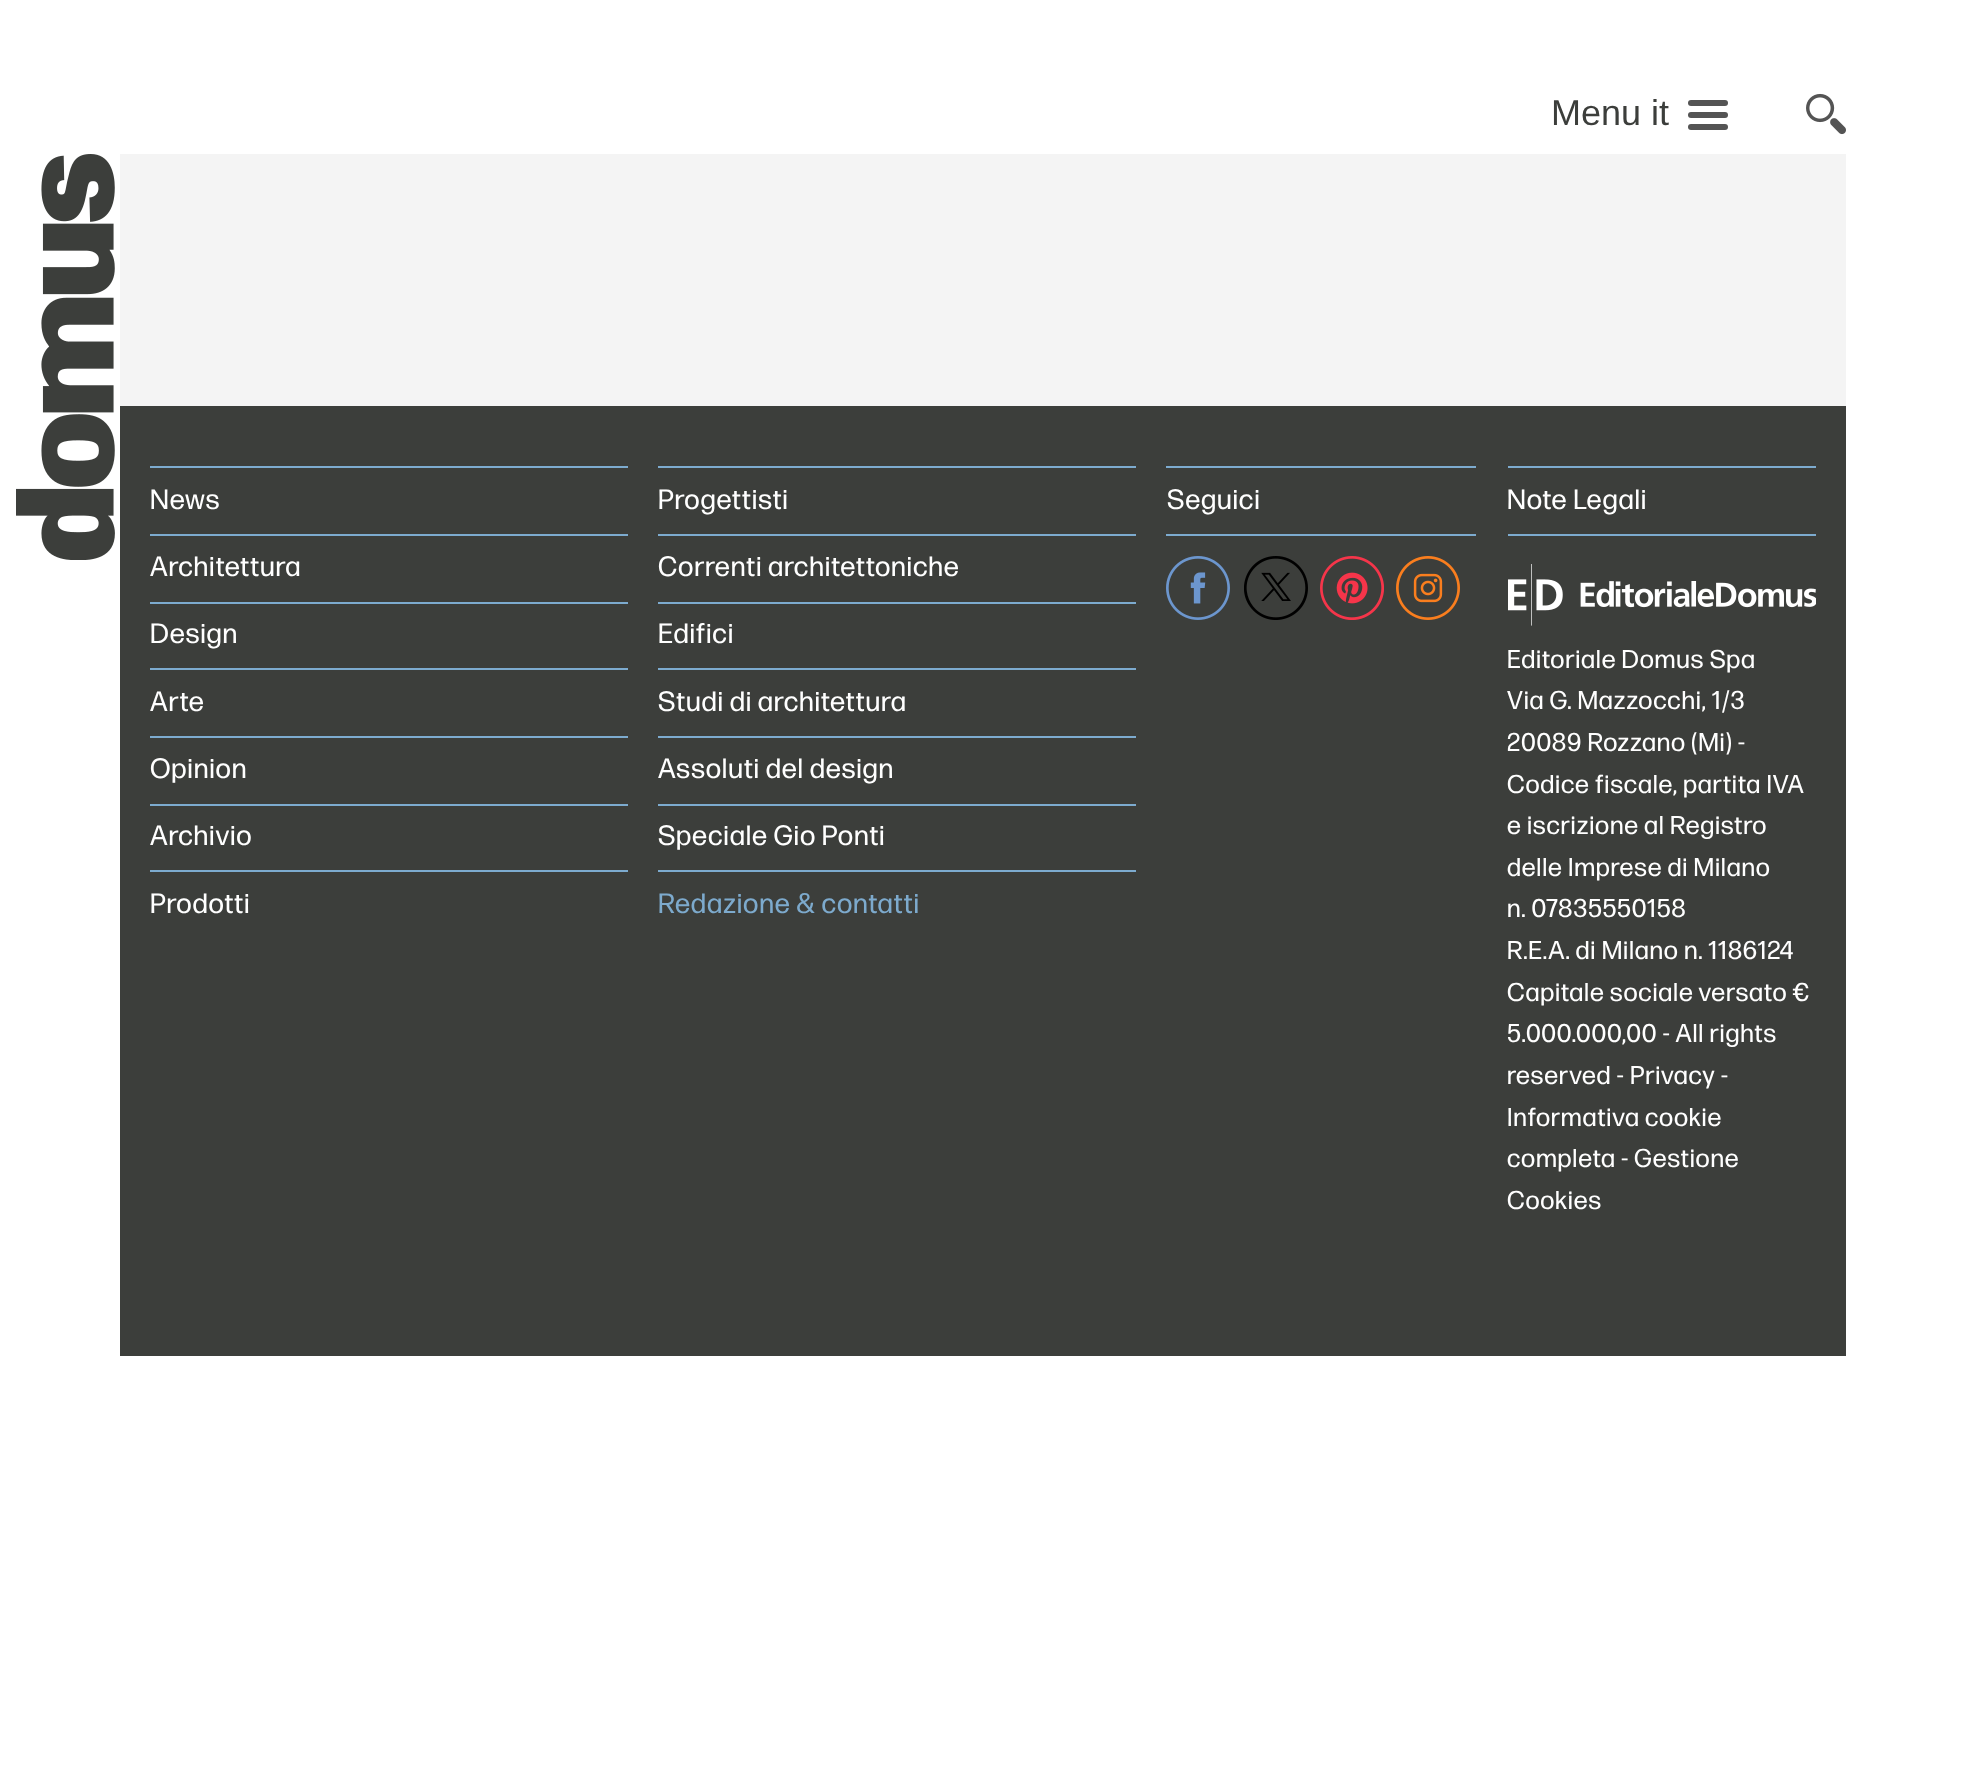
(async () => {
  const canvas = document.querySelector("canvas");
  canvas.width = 1965;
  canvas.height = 1776;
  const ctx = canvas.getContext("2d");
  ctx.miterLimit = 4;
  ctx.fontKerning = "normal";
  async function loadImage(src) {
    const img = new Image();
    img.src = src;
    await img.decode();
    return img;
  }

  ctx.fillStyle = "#ffffff";
  ctx.fillRect(0, 0, 1965, 1776);
  ctx.fillStyle = "#545454";
  ctx.beginPath();
  ctx.roundRect(1688, 112, 40, 6, 3);
  ctx.fill();
  ctx.beginPath();
  ctx.roundRect(1688, 100, 40, 6, 3);
  ctx.fill();
  ctx.beginPath();
  ctx.roundRect(1688, 124, 40, 6, 3);
  ctx.fill();
  ctx.drawImage(await loadImage("img/1.png"), 1806, 93, 40, 42);
  ctx.drawImage(await loadImage("img/2.png"), 16, 154, 99, 406);
  for (const [x, y, w, h, color] of [
    [120, 154, 1726, 252, "#f4f4f4"],
    [120, 406, 1726, 950, "#3c3e3b"],
    [150, 466, 478, 2, "#7dabcf"],
    [150, 534, 478, 2, "#7dabcf"],
    [150, 602, 478, 2, "#7dabcf"],
    [150, 668, 478, 2, "#7dabcf"],
    [150, 736, 478, 2, "#7dabcf"],
    [150, 804, 478, 2, "#7dabcf"],
    [150, 870, 478, 2, "#7dabcf"],
    [658, 466, 478, 2, "#7dabcf"],
    [658, 534, 478, 2, "#7dabcf"],
    [658, 602, 478, 2, "#7dabcf"],
    [658, 668, 478, 2, "#7dabcf"],
    [658, 736, 478, 2, "#7dabcf"],
    [658, 804, 478, 2, "#7dabcf"],
    [658, 870, 478, 2, "#7dabcf"],
    [1166, 466, 310, 2, "#7dabcf"],
    [1166, 534, 310, 2, "#7dabcf"],
  ]) {
    ctx.fillStyle = color;
    ctx.fillRect(x, y, w, h);
  }
  ctx.drawImage(await loadImage("img/3.png"), 1166, 556, 64, 64);
  ctx.drawImage(await loadImage("img/4.png"), 1244, 556, 64, 64);
  ctx.drawImage(await loadImage("img/5.png"), 1320, 556, 64, 64);
  ctx.drawImage(await loadImage("img/6.png"), 1396, 556, 64, 64);
  ctx.fillRect(1508, 466, 308, 2);
  ctx.fillRect(1508, 534, 308, 2);
  ctx.drawImage(await loadImage("img/7.png"), 1508, 564, 308, 62);
  ctx.font = "36px Liberation Sans";
  ctx.fillStyle = "#3c3e3b";
  ctx.fillText("Menu it", 1551, 125);
  ctx.letterSpacing = "0.8px";
  ctx.font = "28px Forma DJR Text";
  ctx.fillStyle = "#ffffff";
  for (const [text, x, y] of [
    ["News", 150, 509],
    ["Architettura", 150, 576],
    ["Design", 150, 643],
    ["Arte", 150, 711],
    ["Opinion", 150, 778],
    ["Archivio", 150, 845],
    ["Prodotti", 150, 913],
    ["Progettisti", 658, 509],
    ["Correnti architettoniche", 658, 576],
    ["Edifici", 658, 643],
    ["Studi di architettura", 658, 711],
    ["Assoluti del design", 658, 778],
    ["Speciale Gio Ponti", 658, 845],
  ]) {
    ctx.fillText(text, x, y);
  }
  ctx.fillStyle = "#7daacd";
  ctx.fillText("Redazione & contatti", 658, 913);
  ctx.fillStyle = "#ffffff";
  ctx.fillText("Seguici", 1167, 509);
  ctx.fillText("Note Legali", 1507, 509);
  ctx.letterSpacing = "0.75px";
  ctx.font = "25.75px Forma DJR Text";
  for (const [text, x, y] of [
    ["Editoriale Domus Spa", 1507, 668],
    ["Via G. Mazzocchi, 1/3", 1507, 709],
    ["20089 Rozzano (Mi) -", 1507, 751],
    ["Codice fiscale, partita IVA", 1507, 793],
    ["e iscrizione al Registro", 1507, 834],
    ["delle Imprese di Milano", 1507, 876],
    ["n. 07835550158", 1507, 917],
    ["R.E.A. di Milano n. 1186124", 1507, 959],
    ["Capitale sociale versato €", 1507, 1001],
    ["5.000.000,00 - All rights", 1507, 1042],
    ["reserved - Privacy", 1507, 1084],
    ["-", 1721, 1084],
    ["Informativa cookie", 1507, 1126],
    ["completa - Gestione", 1507, 1167],
    ["Cookies", 1507, 1209],
  ]) {
    ctx.fillText(text, x, y);
  }
})();
